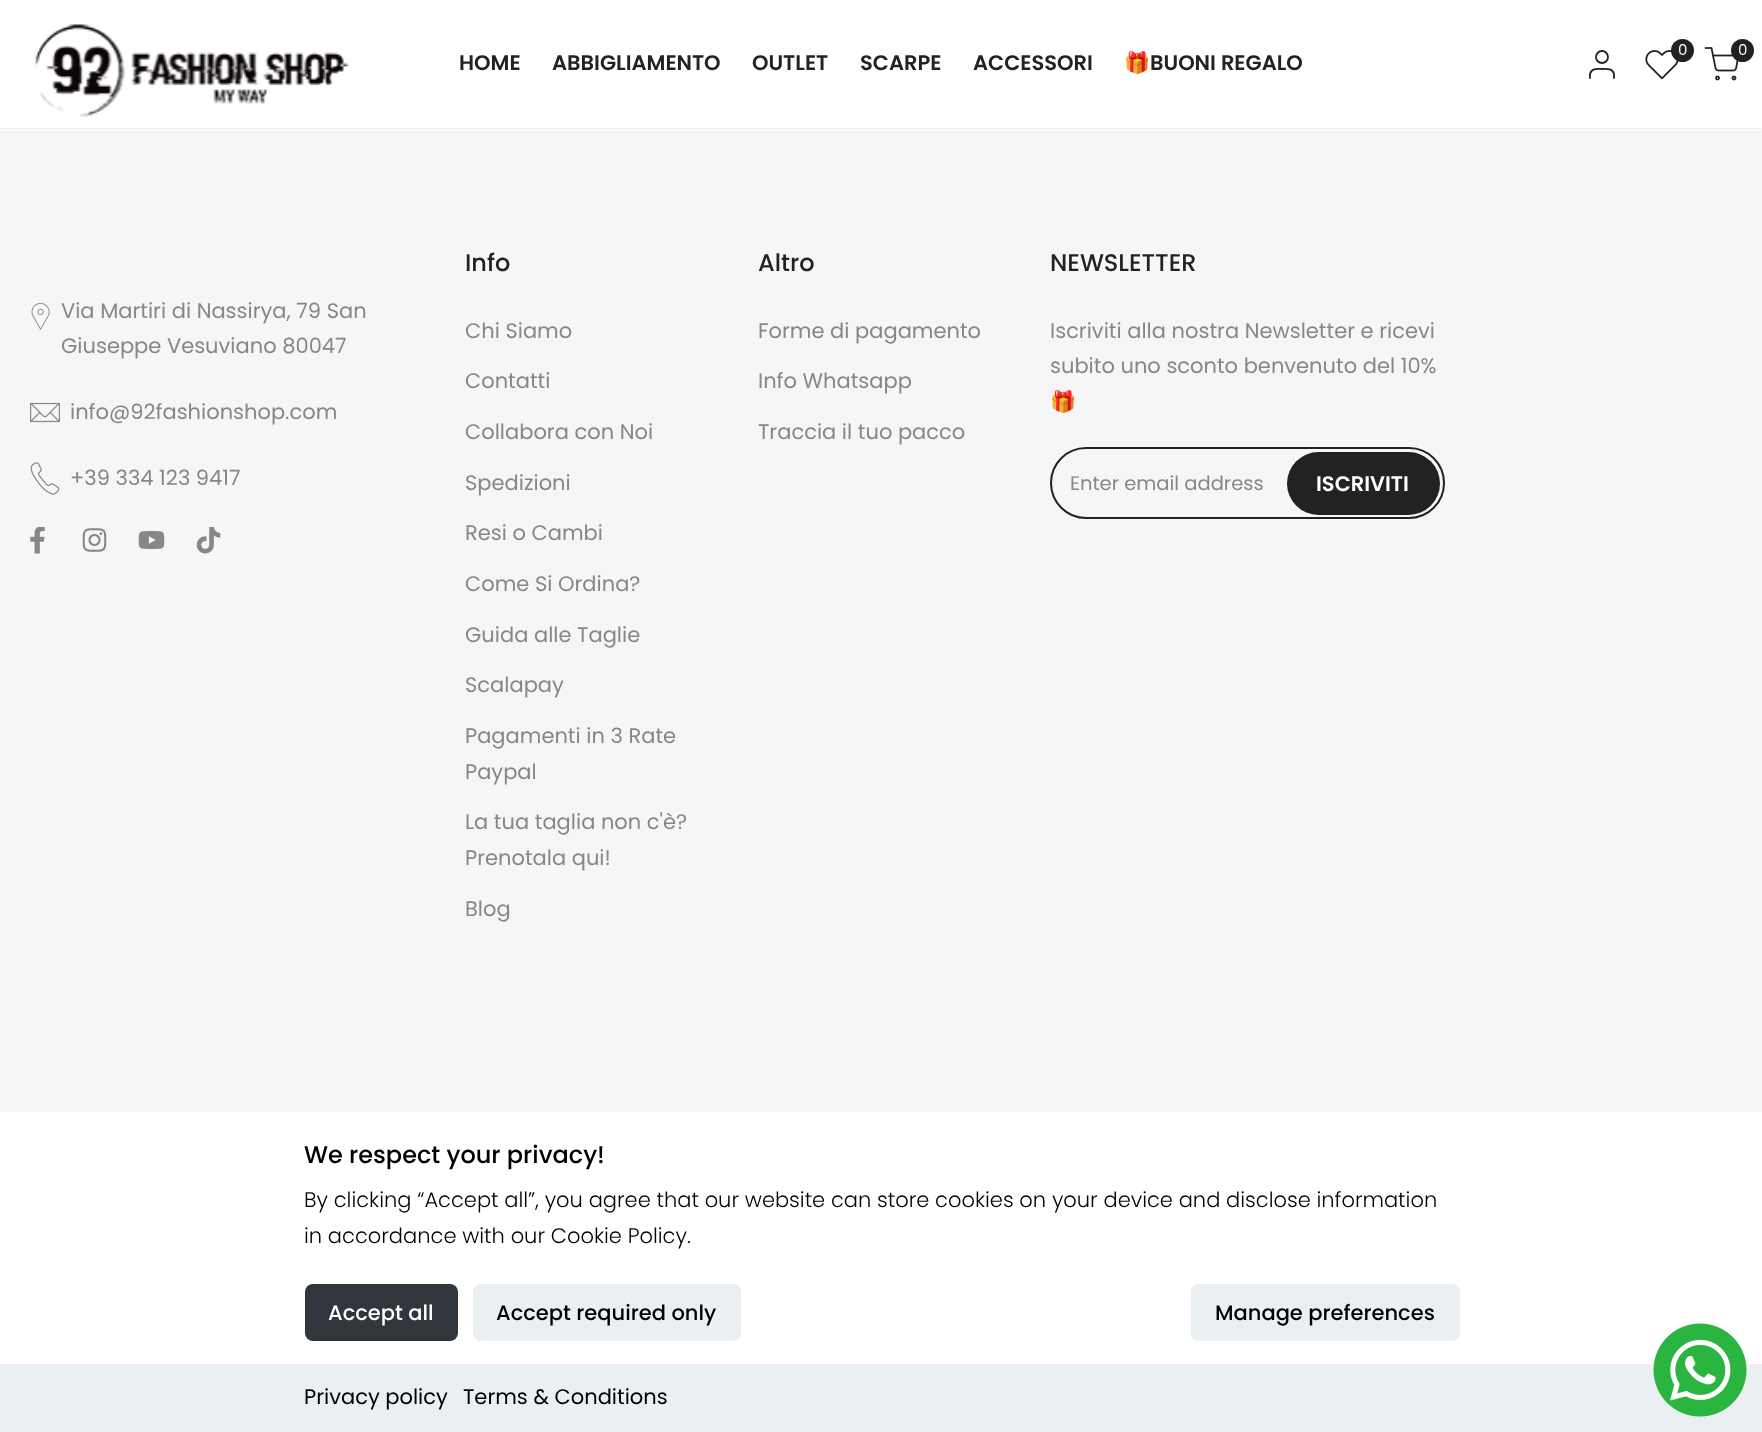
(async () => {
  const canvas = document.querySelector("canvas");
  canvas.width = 1762;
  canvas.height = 1432;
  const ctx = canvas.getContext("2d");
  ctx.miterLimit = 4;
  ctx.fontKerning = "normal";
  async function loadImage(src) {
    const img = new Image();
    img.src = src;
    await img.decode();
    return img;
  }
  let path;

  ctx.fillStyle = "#ffffff";
  ctx.fillRect(0, 0, 1762, 1432);
  ctx.fillStyle = "#f6f6f8";
  ctx.fillRect(0, 131, 1762, 981);
  ctx.fillStyle = "rgba(34, 34, 34, 0.1)";
  ctx.filter = "blur(2px)";
  ctx.beginPath();
  ctx.rect(0, 2, 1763, 127);
  ctx.fill();
  ctx.filter = "none";
  ctx.fillStyle = "#ffffff";
  ctx.fillRect(0, 0, 1762, 128);
  ctx.drawImage(await loadImage("img/1.png"), 34, 24, 315, 93);
  path = new Path2D("M1614 78V74C1612.5 68 1606.5 69 1602 69C1597.5 69 1591.5 68 1590 74V78");
  ctx.strokeStyle = "#222222";
  ctx.lineWidth = 1.8;
  ctx.lineCap = "round";
  ctx.lineJoin = "round";
  ctx.stroke(path);
  ctx.beginPath();
  ctx.arc(1602, 57, 6, 0, Math.PI * 2);
  ctx.stroke();
  ctx.drawImage(await loadImage("img/2.png"), 1645, 50, 34, 30);
  ctx.fillStyle = "#222222";
  ctx.beginPath();
  ctx.arc(1682.5, 50.5, 11.5, 0, Math.PI * 2);
  ctx.fill();
  ctx.drawImage(await loadImage("img/3.png"), 1704, 47, 35, 34);
  ctx.beginPath();
  ctx.arc(1742.5, 50.5, 11.5, 0, Math.PI * 2);
  ctx.fill();
  ctx.drawImage(await loadImage("img/4.png"), 31, 303, 19, 27);
  ctx.drawImage(await loadImage("img/5.png"), 30, 402, 30, 21);
  ctx.drawImage(await loadImage("img/6.png"), 30, 462, 30, 33);
  ctx.drawImage(await loadImage("img/7.png"), 30, 527, 15, 27);
  ctx.drawImage(await loadImage("img/8.png"), 82, 528, 25, 24);
  ctx.drawImage(await loadImage("img/9.png"), 138, 531, 27, 18);
  ctx.drawImage(await loadImage("img/10.png"), 196, 527, 25, 27);
  ctx.beginPath();
  ctx.roundRect(1051, 448, 393, 70, 35);
  ctx.lineWidth = 2;
  ctx.lineJoin = "miter";
  ctx.stroke();
  ctx.beginPath();
  ctx.roundRect(1287, 452, 153, 63, 31.5);
  ctx.fill();
  ctx.fillStyle = "#30363c";
  ctx.beginPath();
  ctx.roundRect(305, 1284, 153, 57, 8);
  ctx.fill();
  ctx.fillStyle = "#eaeff2";
  ctx.beginPath();
  ctx.roundRect(473, 1284, 268, 57, 8);
  ctx.fill();
  ctx.beginPath();
  ctx.roundRect(1191, 1284, 269, 57, 8);
  ctx.fill();
  for (const [x, y, w, h, color] of [
    [0, 1366, 1762, 65, "#eaeff2"],
    [0, 1364, 1762, 2, "#eeeeee"],
    [0, 1431, 1762, 1, "#eeeeee"],
  ]) {
    ctx.fillStyle = color;
    ctx.fillRect(x, y, w, h);
  }
  ctx.drawImage(await loadImage("img/11.png"), 1653, 1323, 94, 94);
  ctx.font = "15px Poppins";
  ctx.fillStyle = "#ffffff";
  ctx.fillText("0", 1678, 55);
  ctx.fillText("0", 1738, 55);
  ctx.font = "600 21px Poppins";
  ctx.fillStyle = "#222222";
  for (const [text, x, y] of [
    ["HOME", 459, 70],
    ["ABBIGLIAMENTO", 552, 70],
    ["OUTLET", 752, 70],
    ["SCARPE", 860, 70],
    ["ACCESSORI", 973, 70],
  ]) {
    ctx.fillText(text, x, y);
  }
  ctx.save();
  ctx.beginPath();
  ctx.rect(1125, 48, 179, 32);
  ctx.clip();
  ctx.font = "bold 21px Noto Color Emoji";
  ctx.fillText("🎁", 1124, 70);
  ctx.restore();
  ctx.fillText("BUONI REGALO", 1150, 70);
  ctx.font = "21px Poppins";
  ctx.fillStyle = "#878787";
  for (const [text, x, y] of [
    ["Via Martiri di Nassirya, 79 San", 61, 318],
    ["Giuseppe Vesuviano 80047", 61, 353],
    ["info@92fashionshop.com", 70, 419],
    ["+39 334 123 9417", 70, 485],
  ]) {
    ctx.fillText(text, x, y);
  }
  ctx.font = "500 24px Poppins";
  ctx.fillStyle = "#222222";
  ctx.fillText("Info", 465, 271);
  ctx.font = "21px Poppins";
  ctx.fillStyle = "#878787";
  for (const [text, x, y] of [
    ["Chi Siamo", 465, 338],
    ["Contatti", 465, 388],
    ["Collabora con Noi", 465, 439],
    ["Spedizioni", 465, 490],
    ["Resi o Cambi", 465, 540],
    ["Come Si Ordina?", 465, 591],
    ["Guida alle Taglie", 465, 642],
    ["Scalapay", 465, 692],
    ["Pagamenti in 3 Rate", 465, 743],
    ["Paypal", 465, 779],
    ["La tua taglia non c'è?", 465, 829],
    ["Prenotala qui!", 465, 865],
    ["Blog", 465, 916],
  ]) {
    ctx.fillText(text, x, y);
  }
  ctx.font = "500 24px Poppins";
  ctx.fillStyle = "#222222";
  ctx.fillText("Altro", 758, 271);
  ctx.font = "21px Poppins";
  ctx.fillStyle = "#878787";
  for (const [text, x, y] of [
    ["Forme di pagamento", 758, 338],
    ["Info Whatsapp", 758, 388],
    ["Traccia il tuo pacco", 758, 439],
  ]) {
    ctx.fillText(text, x, y);
  }
  ctx.font = "500 24px Poppins";
  ctx.fillStyle = "#222222";
  ctx.fillText("NEWSLETTER", 1050, 271);
  ctx.font = "21px Poppins";
  ctx.fillStyle = "#878787";
  ctx.fillText("Iscriviti alla nostra Newsletter e ricevi", 1050, 338);
  ctx.fillText("subito uno sconto benvenuto del 10%", 1050, 373);
  ctx.font = "21px Noto Color Emoji";
  ctx.fillText("🎁", 1050, 409);
  ctx.font = "19.5px Poppins";
  ctx.fillText("Enter email address", 1070, 490);
  ctx.font = "600 21px Poppins";
  ctx.fillStyle = "#ffffff";
  ctx.fillText("ISCRIVITI", 1316, 491);
  ctx.font = "500 24px Poppins";
  ctx.fillStyle = "#000000";
  ctx.fillText("We respect your privacy!", 304, 1163);
  ctx.font = "300 21px Poppins";
  ctx.fillText("By clicking “Accept all”, you agree that our website can store cookies on your device and disclose information", 304, 1207);
  ctx.fillText("in accordance with our Cookie Policy.", 304, 1243);
  ctx.font = "500 21px Poppins";
  ctx.fillStyle = "#ffffff";
  ctx.fillText("Accept all", 328, 1320);
  ctx.fillStyle = "#000000";
  ctx.fillText("Accept required only", 496, 1320);
  ctx.fillText("Manage preferences", 1215, 1320);
  ctx.font = "21px Poppins";
  ctx.fillText("Privacy policy", 304, 1404);
  ctx.fillText("Terms & Conditions", 463, 1404);
})();
